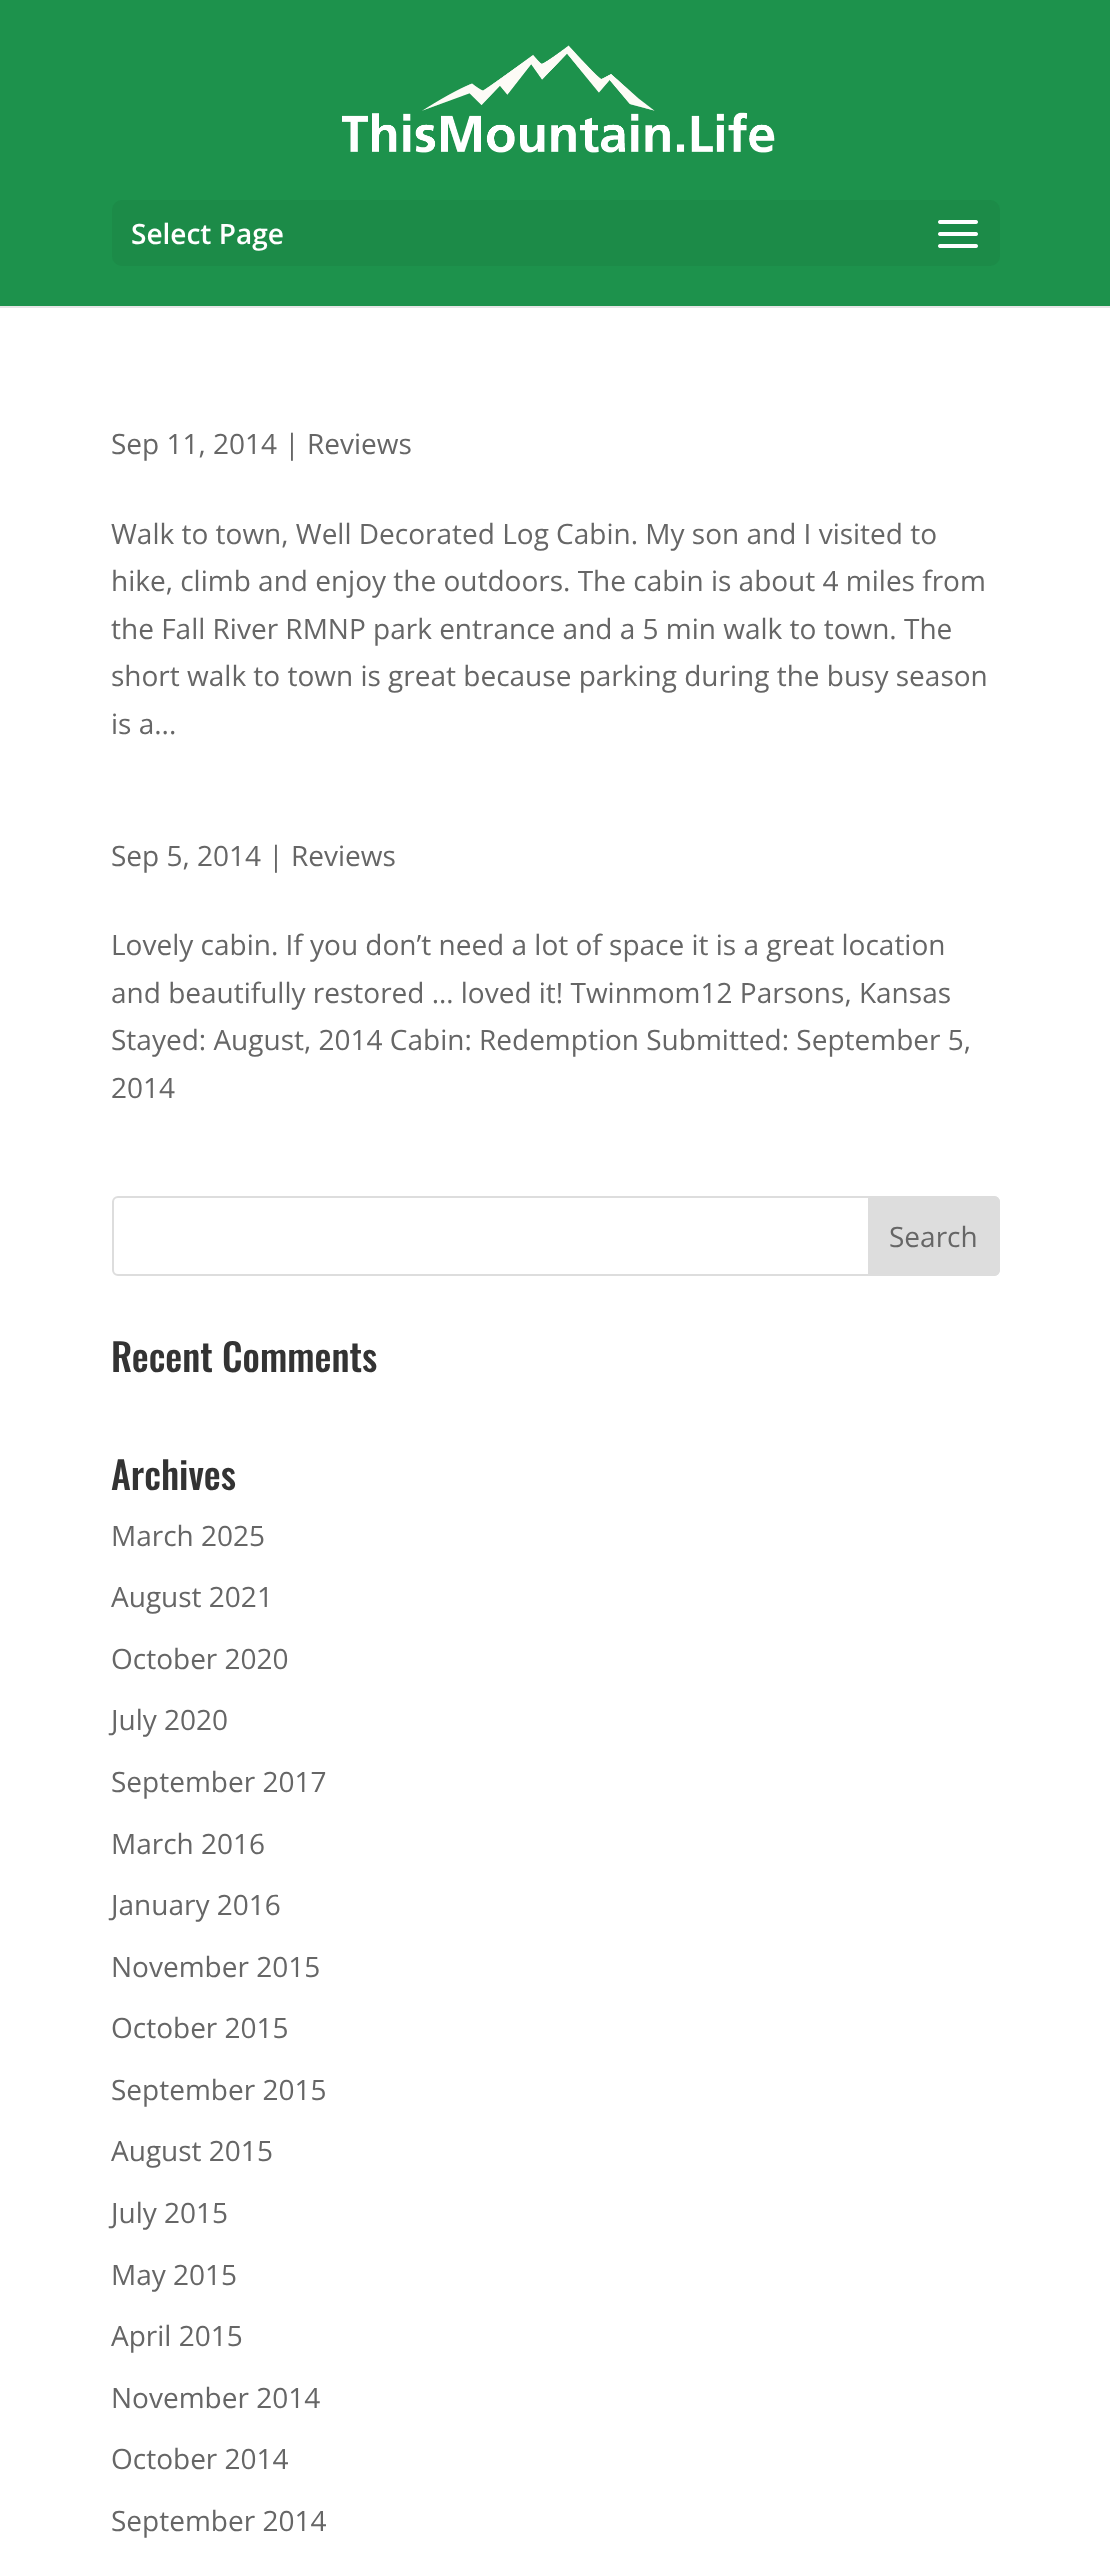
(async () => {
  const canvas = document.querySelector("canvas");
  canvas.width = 1110;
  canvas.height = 2564;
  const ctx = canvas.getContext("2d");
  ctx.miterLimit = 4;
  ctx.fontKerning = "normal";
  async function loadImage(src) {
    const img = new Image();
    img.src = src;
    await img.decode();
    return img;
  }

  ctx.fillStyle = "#ffffff";
  ctx.fillRect(0, 0, 1110, 2564);
  ctx.fillStyle = "#e6e6e6";
  ctx.fillRect(0, 306, 1110, 2);
  ctx.fillStyle = "#1d924c";
  ctx.fillRect(0, 0, 1110, 306);
  ctx.drawImage(await loadImage("img/1.png"), 342, 45, 433, 108);
  ctx.fillStyle = "#1c8b48";
  ctx.beginPath();
  ctx.roundRect(112, 200, 888, 66, 10);
  ctx.fill();
  ctx.drawImage(await loadImage("img/2.png"), 938, 220, 40, 28);
  ctx.beginPath();
  ctx.roundRect(113, 1197, 886, 78, 5);
  ctx.strokeStyle = "#dddddd";
  ctx.lineWidth = 2;
  ctx.stroke();
  ctx.fillStyle = "#dddddd";
  ctx.beginPath();
  ctx.roundRect(869, 1197, 130, 78, [0, 5, 5, 0]);
  ctx.fill();
  ctx.stroke();
  ctx.font = "600 28px Open Sans";
  ctx.fillStyle = "#ffffff";
  ctx.fillText("Select Page", 131, 244);
  ctx.font = "28px Open Sans";
  ctx.fillStyle = "#666666";
  for (const [text, x, y] of [
    ["Sep 11, 2014 | Reviews", 111, 454],
    ["Walk to town, Well Decorated Log Cabin. My son and I visited to", 111, 544],
    ["hike, climb and enjoy the outdoors. The cabin is about 4 miles from", 111, 591],
    ["the Fall River RMNP park entrance and a 5 min walk to town. The", 111, 639],
    ["short walk to town is great because parking during the busy season", 111, 686],
    ["is a...", 111, 734],
    ["Sep 5, 2014 | Reviews", 111, 866],
    ["Lovely cabin. If you don’t need a lot of space it is a great location", 111, 955],
    ["and beautifully restored … loved it! Twinmom12 Parsons, Kansas", 111, 1003],
    ["Stayed: August, 2014 Cabin: Redemption Submitted: September 5,", 111, 1050],
    ["2014", 111, 1098],
    ["Search", 889, 1247],
  ]) {
    ctx.fillText(text, x, y);
  }
  ctx.font = "500 38px Oswald";
  ctx.fillStyle = "#333333";
  ctx.fillText("Recent Comments", 111, 1372);
  ctx.fillText("Archives", 111, 1490);
  ctx.font = "28px Open Sans";
  ctx.fillStyle = "#666666";
  for (const [text, x, y] of [
    ["March 2025", 111, 1546],
    ["August 2021", 111, 1607],
    ["October 2020", 111, 1669],
    ["July 2020", 111, 1730],
    ["September 2017", 111, 1792],
    ["March 2016", 111, 1854],
    ["January 2016", 111, 1915],
    ["November 2015", 111, 1977],
    ["October 2015", 111, 2038],
    ["September 2015", 111, 2100],
    ["August 2015", 111, 2161],
    ["July 2015", 111, 2223],
    ["May 2015", 111, 2285],
    ["April 2015", 111, 2346],
    ["November 2014", 111, 2408],
    ["October 2014", 111, 2469],
    ["September 2014", 111, 2531],
  ]) {
    ctx.fillText(text, x, y);
  }
})();
